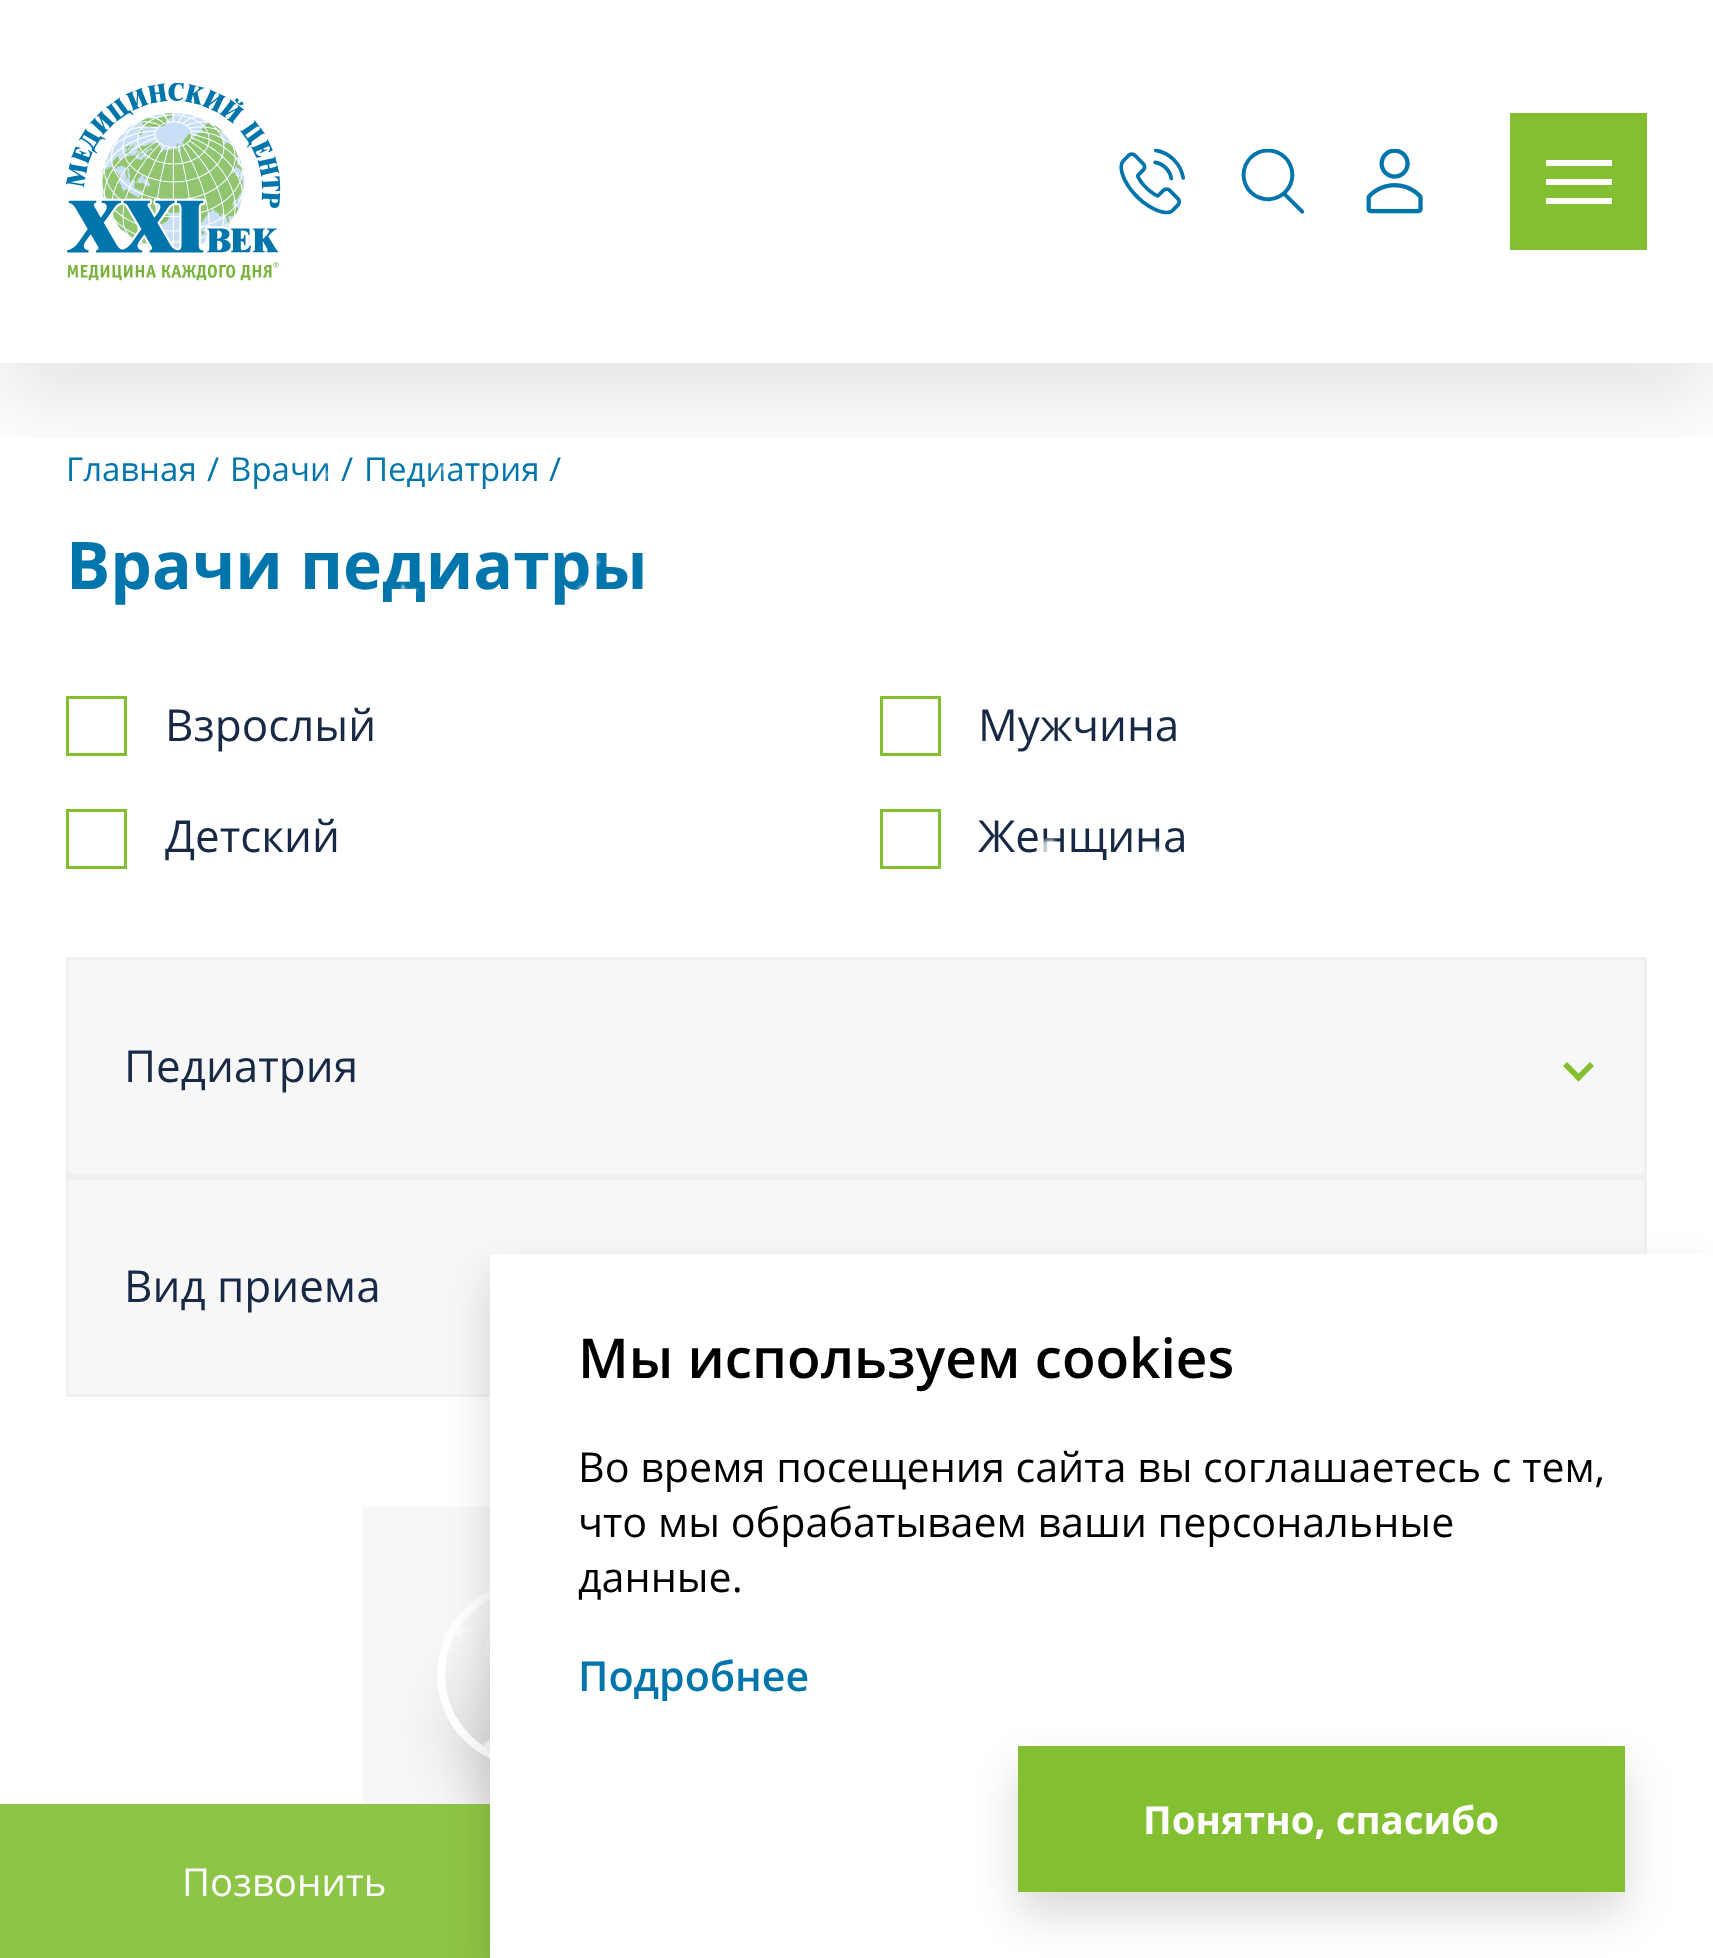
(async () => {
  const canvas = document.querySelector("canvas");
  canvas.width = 1713;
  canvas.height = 1958;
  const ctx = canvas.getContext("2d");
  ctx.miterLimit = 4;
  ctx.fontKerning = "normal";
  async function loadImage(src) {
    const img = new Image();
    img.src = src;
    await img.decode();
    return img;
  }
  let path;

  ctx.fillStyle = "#ffffff";
  ctx.fillRect(0, 0, 1713, 1958);
  ctx.strokeStyle = "#82bf31";
  ctx.lineWidth = 3;
  ctx.strokeRect(67.5, 697.5, 58, 57);
  ctx.strokeRect(881.5, 697.5, 58, 57);
  ctx.strokeRect(67.5, 810.5, 58, 57);
  ctx.strokeRect(881.5, 810.5, 58, 57);
  ctx.fillStyle = "#f7f7f7";
  ctx.fillRect(363, 1507, 127, 297);
  ctx.fillStyle = "rgba(0, 0, 0, 0.1)";
  ctx.filter = "blur(27.5px)";
  ctx.beginPath();
  ctx.roundRect(446, 1645, 170, 170, 85);
  ctx.fill();
  ctx.filter = "none";
  ctx.fillStyle = "#8fc546";
  ctx.fillRect(0, 1804, 490, 154);
  ctx.beginPath();
  ctx.arc(530.5, 1674.5, 89.5, 0, Math.PI * 2);
  ctx.strokeStyle = "#ffffff";
  ctx.lineWidth = 8;
  ctx.stroke();
  ctx.drawImage(await loadImage("img/6.png"), 446, 1599, 44, 151);
  ctx.font = "33px Open Sans";
  ctx.fillStyle = "#0075ac";
  for (const [text, x, y] of [
    ["Главная", 66, 481],
    ["/", 207, 481],
    ["Врачи", 230, 481],
    ["/", 341, 481],
    ["Педиатрия", 364, 481],
    ["/", 549, 481],
  ]) {
    ctx.fillText(text, x, y);
  }
  ctx.font = "bold 66px Open Sans";
  ctx.fillText("Врачи педиатры", 66, 589);
  ctx.font = "44px Open Sans";
  ctx.fillStyle = "#172945";
  for (const [text, x, y] of [
    ["Взрослый", 165, 741],
    ["Мужчина", 978, 741],
    ["Детский", 165, 852],
    ["Женщина", 978, 852],
  ]) {
    ctx.fillText(text, x, y);
  }
  ctx.drawImage(await loadImage("img/5.png"), 241, 463, 1073, 1182);
  ctx.save();
  ctx.beginPath();
  ctx.rect(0, 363, 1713, 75);
  ctx.clip();
  ctx.fillStyle = "rgba(0, 0, 0, 0.1)";
  ctx.filter = "blur(41px)";
  ctx.beginPath();
  ctx.rect(0, 41, 1713, 363);
  ctx.fill();
  ctx.filter = "none";
  ctx.restore();
  for (const [x, y, w, h, color] of [
    [1510, 113, 137, 137, "#82bf31"],
    [1546, 198, 66, 6, "#ffffff"],
    [1546, 179, 66, 6, "#ffffff"],
    [1546, 160, 66, 6, "#ffffff"],
  ]) {
    ctx.fillStyle = color;
    ctx.fillRect(x, y, w, h);
  }
  ctx.drawImage(await loadImage("img/3.png"), 1241, 148, 64, 66);
  ctx.drawImage(await loadImage("img/2.png"), 1119, 148, 66, 67);
  ctx.drawImage(await loadImage("img/4.png"), 1366, 149, 57, 65);
  ctx.drawImage(await loadImage("img/1.png"), 66, 83, 215, 198);
  ctx.fillStyle = "#f7f7f7";
  ctx.beginPath();
  ctx.rect(67.5, 1178.5, 1578, 217);
  ctx.fill();
  ctx.strokeStyle = "#f0f0f0";
  ctx.lineWidth = 3;
  ctx.stroke();
  ctx.fillStyle = "#172945";
  ctx.fillText("Вид приема", 124, 1302);
  ctx.fillStyle = "#f7f7f7";
  ctx.beginPath();
  ctx.rect(67.5, 958.5, 1578, 217);
  ctx.fill();
  ctx.stroke();
  ctx.fillStyle = "#82bf31";
  path = new Path2D("M1590 1062L1594 1066L1578.5 1081.5L1574.5 1077.5Z");
  ctx.fill(path);
  path = new Path2D("M1567 1062L1582.5 1077.5L1578.5 1081.5L1563 1066Z");
  ctx.fill(path);
  ctx.fillStyle = "#172945";
  ctx.fillText("Педиатрия", 124, 1082);
  ctx.font = "38.5px Open Sans";
  ctx.fillStyle = "#ffffff";
  ctx.fillText("Позвонить", 182, 1896);
  ctx.fillStyle = "rgba(0, 0, 0, 0.15)";
  ctx.filter = "blur(22px)";
  ctx.beginPath();
  ctx.rect(490, 1276, 1223, 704);
  ctx.fill();
  ctx.filter = "none";
  ctx.fillStyle = "#ffffff";
  ctx.fillRect(490, 1254, 1223, 704);
  ctx.font = "600 55px Open Sans";
  ctx.fillStyle = "#000000";
  ctx.fillText("Мы используем cookies", 578, 1378);
  ctx.font = "41.25px Open Sans";
  for (const [text, x, y] of [
    ["Во время посещения сайта вы соглашаетесь с тем,", 578, 1482],
    ["что мы обрабатываем ваши персональные", 578, 1537],
    ["данные.", 578, 1592],
  ]) {
    ctx.fillText(text, x, y);
  }
  ctx.font = "600 41.25px Open Sans";
  ctx.fillStyle = "#0075ac";
  ctx.fillText("Подробнее", 578, 1691);
  ctx.fillStyle = "rgba(0, 0, 0, 0.15)";
  ctx.filter = "blur(22px)";
  ctx.beginPath();
  ctx.rect(1018, 1768, 607, 146);
  ctx.fill();
  ctx.filter = "none";
  ctx.fillStyle = "#82bf31";
  ctx.fillRect(1018, 1746, 607, 146);
  ctx.font = "bold 38.5px Open Sans";
  ctx.fillStyle = "#ffffff";
  ctx.fillText("Понятно, спасибо", 1143, 1834);
})();
